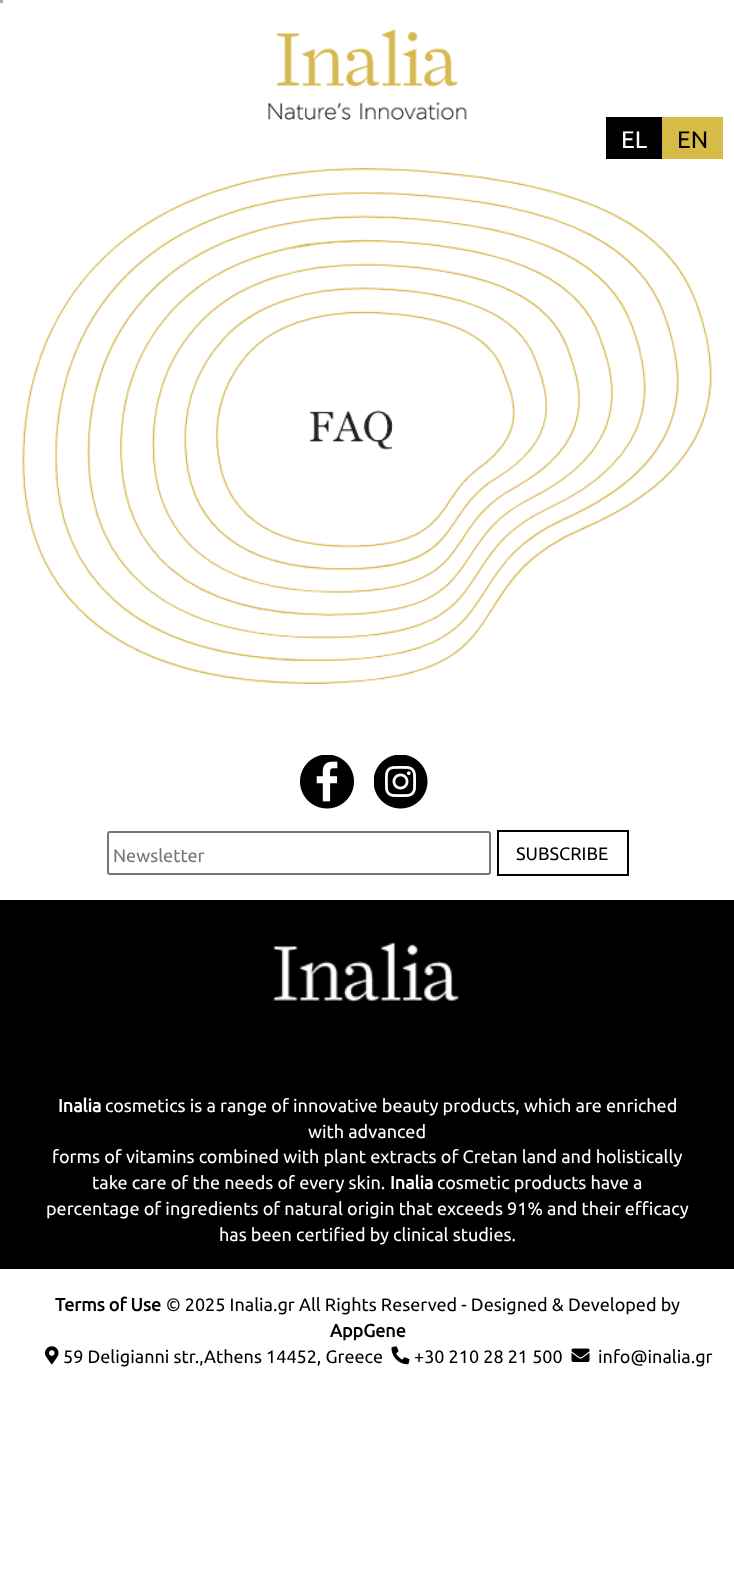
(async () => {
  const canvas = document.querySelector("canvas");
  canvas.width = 734;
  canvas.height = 1596;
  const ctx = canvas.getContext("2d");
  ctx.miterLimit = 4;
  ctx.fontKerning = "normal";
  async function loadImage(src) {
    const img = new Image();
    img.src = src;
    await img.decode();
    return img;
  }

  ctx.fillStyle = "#ffffff";
  ctx.fillRect(0, 0, 734, 1596);
  ctx.fillStyle = "#aaaaaa";
  ctx.fillRect(0, 0, 3, 3);
  ctx.drawImage(await loadImage("img/1.png"), 268, 30, 199, 90);
  ctx.fillStyle = "#000000";
  ctx.fillRect(606, 117, 56, 42);
  ctx.fillStyle = "#d8ba46";
  ctx.fillRect(662, 117, 61, 42);
  ctx.drawImage(await loadImage("img/2.png"), 22, 168, 690, 516);
  ctx.drawImage(await loadImage("img/3.png"), 300, 755, 54, 54);
  ctx.drawImage(await loadImage("img/4.png"), 374, 755, 54, 54);
  ctx.beginPath();
  ctx.roundRect(108, 832, 382, 42, 2);
  ctx.strokeStyle = "#767676";
  ctx.lineWidth = 2;
  ctx.stroke();
  ctx.strokeStyle = "#000000";
  ctx.strokeRect(498, 831, 130, 44);
  ctx.fillStyle = "#000000";
  ctx.fillRect(0, 900, 734, 369);
  ctx.drawImage(await loadImage("img/5.png"), 273, 941, 187, 62);
  ctx.drawImage(await loadImage("img/6.png"), 45, 1346, 14, 19);
  ctx.drawImage(await loadImage("img/7.png"), 391, 1346, 19, 19);
  ctx.drawImage(await loadImage("img/8.png"), 571, 1348, 19, 14);
  ctx.font = "24px Ubuntu";
  ctx.fillStyle = "#ffffff";
  ctx.fillText("EL", 621, 148);
  ctx.fillStyle = "#000000";
  ctx.fillText("EN", 677, 148);
  ctx.font = "18px Ubuntu";
  ctx.fillStyle = "#757575";
  ctx.fillText("Newsletter", 113, 862);
  ctx.fillStyle = "#000000";
  ctx.fillText("SUBSCRIBE", 516, 860);
  ctx.font = "bold 18px Ubuntu";
  ctx.fillStyle = "#ffffff";
  ctx.fillText("Inalia", 58, 1112);
  ctx.font = "18px Ubuntu";
  for (const [text, x, y] of [
    ["cosmetics is a range of innovative beauty products, which are enriched", 105, 1112],
    ["with advanced", 308, 1138],
    ["forms of vitamins combined with plant extracts of Cretan land and holistically", 52, 1163],
    ["take care of the needs of every skin.", 92, 1189],
  ]) {
    ctx.fillText(text, x, y);
  }
  ctx.font = "bold 18px Ubuntu";
  ctx.fillText("Inalia", 390, 1189);
  ctx.font = "18px Ubuntu";
  for (const [text, x, y] of [
    ["cosmetic products have a", 437, 1189],
    ["percentage of ingredients of natural origin that exceeds 91% and their efficacy", 46, 1215],
    ["has been certified by clinical studies.", 219, 1241],
  ]) {
    ctx.fillText(text, x, y);
  }
  ctx.font = "bold 18px Ubuntu";
  ctx.fillStyle = "#000000";
  ctx.fillText("Terms of Use", 55, 1311);
  ctx.font = "18px Ubuntu";
  ctx.fillText("© 2025 Inalia.gr All Rights Reserved - Designed & Developed by", 166, 1311);
  ctx.font = "bold 18px Ubuntu";
  ctx.fillText("AppGene", 330, 1337);
  ctx.font = "18px Ubuntu";
  for (const [text, x, y] of [
    ["59 Deligianni str.,Athens 14452, Greece", 63, 1363],
    ["+30 210 28 21 500", 414, 1363],
    ["info@inalia.gr", 598, 1363],
  ]) {
    ctx.fillText(text, x, y);
  }
})();
